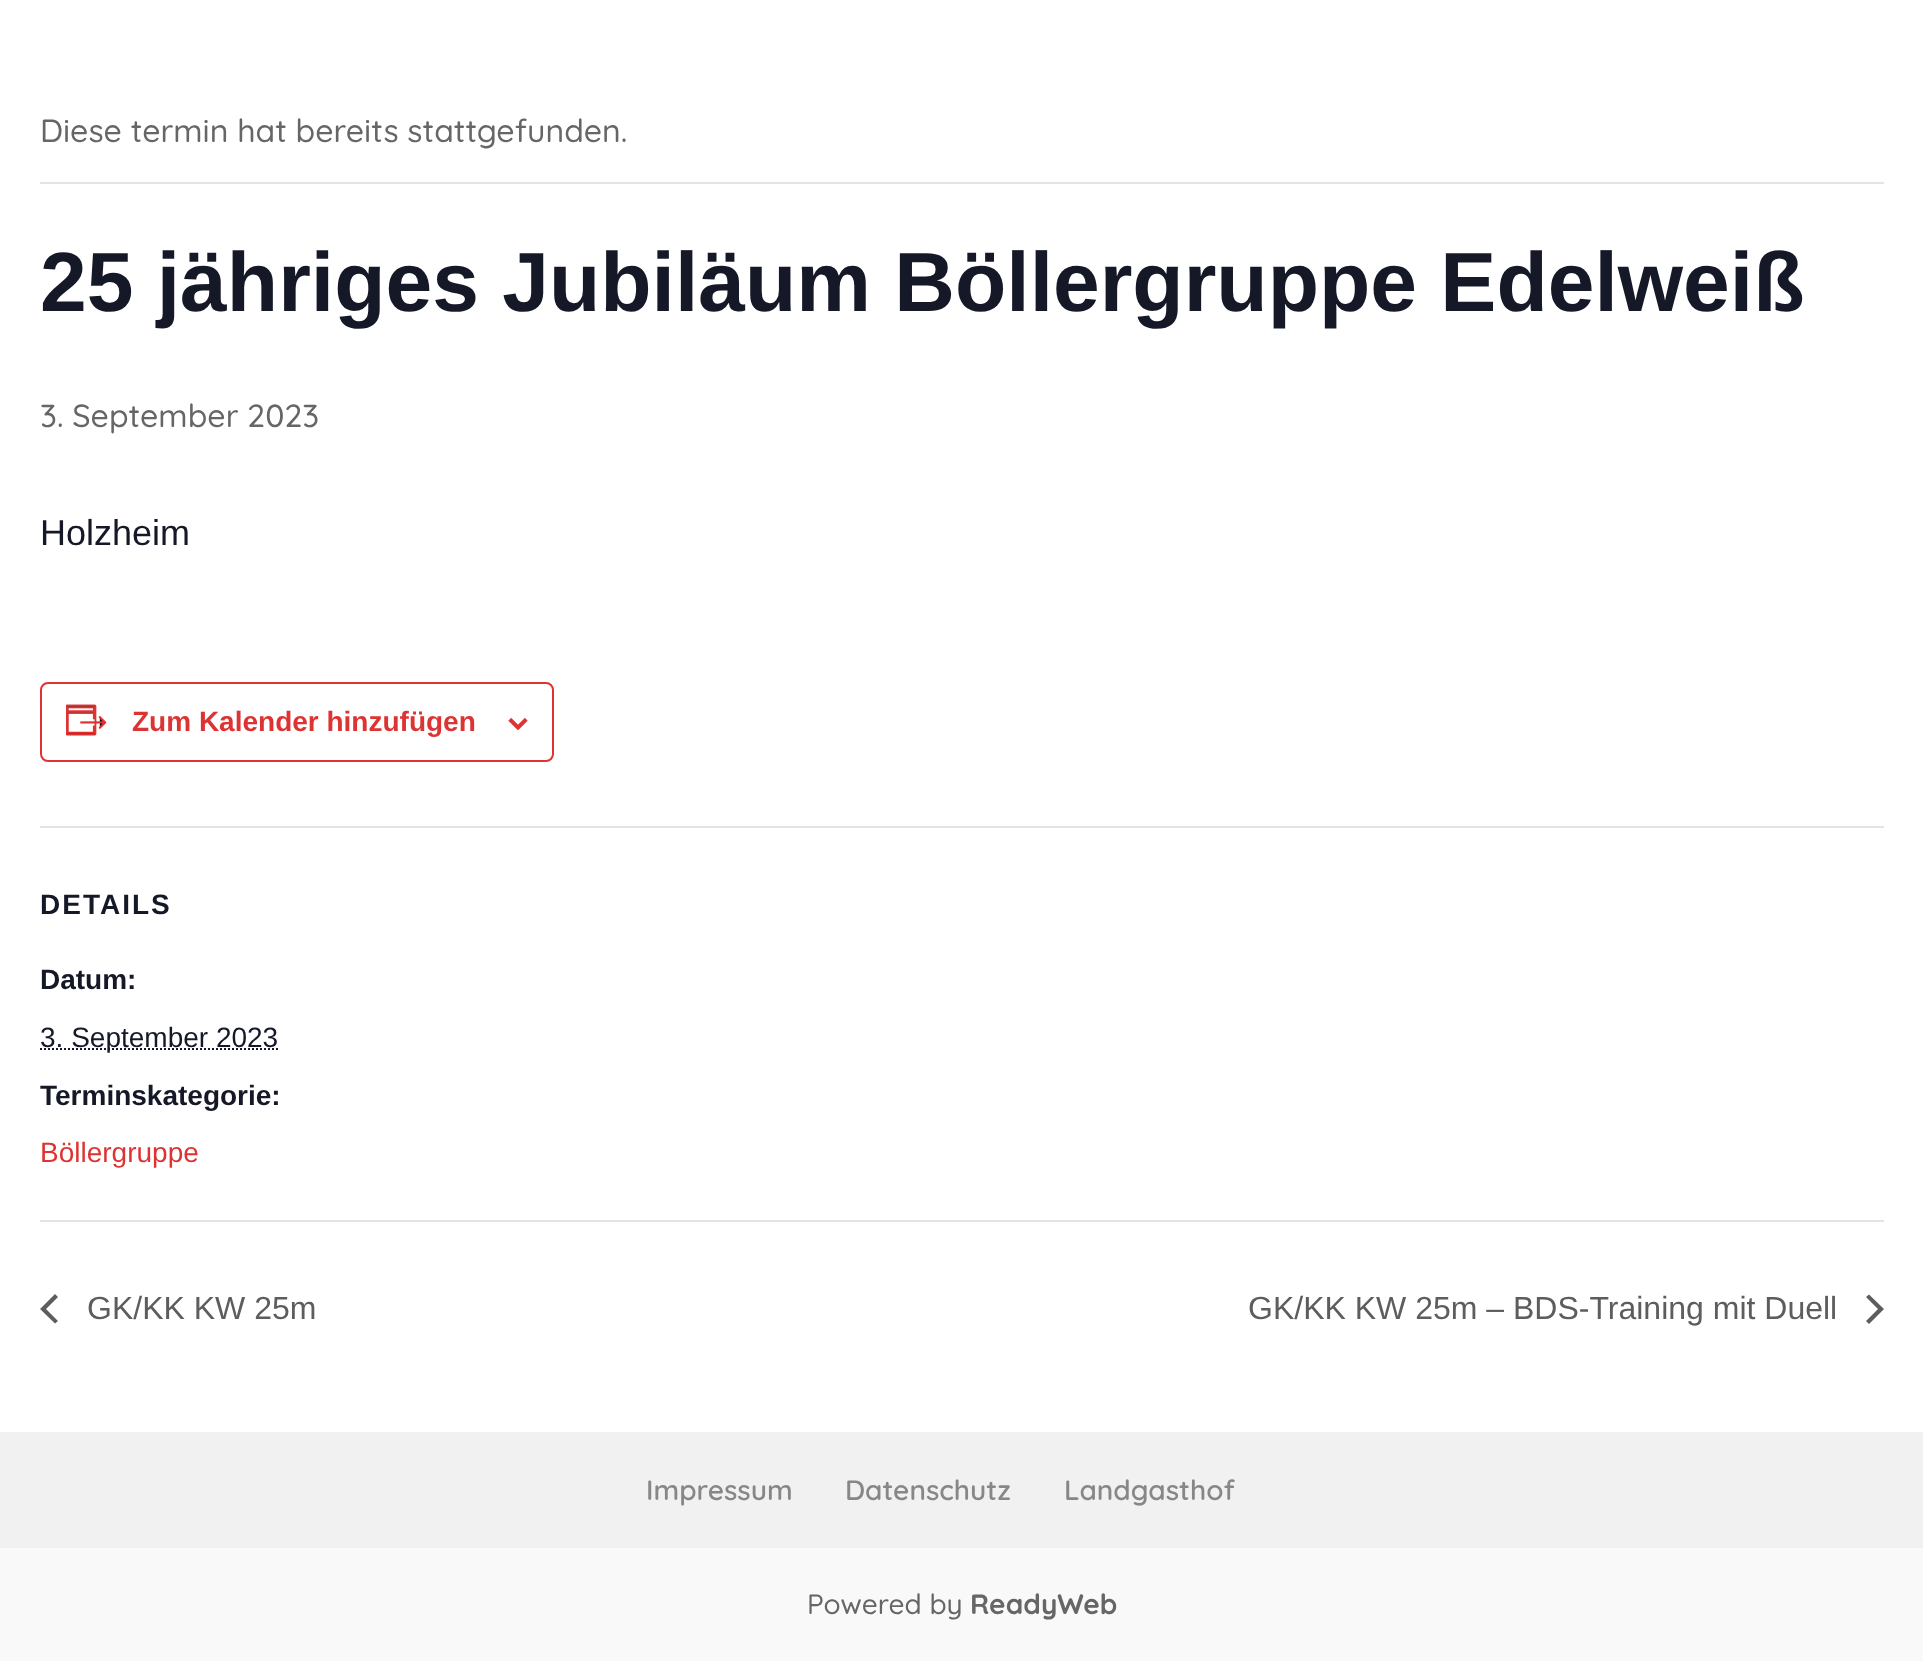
(async () => {
  const canvas = document.querySelector("canvas");
  canvas.width = 1923;
  canvas.height = 1661;
  const ctx = canvas.getContext("2d");
  ctx.miterLimit = 4;
  ctx.fontKerning = "normal";
  async function loadImage(src) {
    const img = new Image();
    img.src = src;
    await img.decode();
    return img;
  }
  let path;

  ctx.fillStyle = "#ffffff";
  ctx.fillRect(0, 0, 1923, 1661);
  ctx.fillStyle = "#e4e4e4";
  ctx.fillRect(40, 182, 1844, 2);
  ctx.beginPath();
  ctx.roundRect(41, 683, 512, 78, 7);
  ctx.strokeStyle = "#dd3333";
  ctx.lineWidth = 2;
  ctx.stroke();
  ctx.drawImage(await loadImage("img/1.png"), 66, 704, 41, 32);
  ctx.drawImage(await loadImage("img/2.png"), 508, 718, 20, 12);
  ctx.fillRect(40, 826, 1844, 2);
  path = new Path2D("M40 1049H278");
  ctx.strokeStyle = "#141827";
  ctx.setLineDash([2, 2]);
  ctx.stroke(path);
  ctx.fillRect(40, 1220, 1844, 2);
  ctx.fillStyle = "#5d5d5d";
  path = new Path2D("M58 1321L55 1323.5L40 1309L55 1294L58 1297L46 1309Z");
  ctx.fill(path);
  path = new Path2D("M1866 1297L1869 1294.5L1884 1309L1869 1324L1866 1321L1878 1309Z");
  ctx.fill(path);
  ctx.fillStyle = "#f1f1f1";
  ctx.fillRect(0, 1432, 1923, 116);
  ctx.fillStyle = "#f9f9f9";
  ctx.fillRect(0, 1548, 1923, 113);
  ctx.font = "500 32px Quicksand";
  ctx.fillStyle = "#666666";
  ctx.fillText("Diese termin hat bereits stattgefunden.", 40, 142);
  ctx.font = "bold 84px Liberation Sans";
  ctx.fillStyle = "#141827";
  ctx.fillText("25 jähriges Jubiläum Böllergruppe Edelweiß", 40, 311);
  ctx.font = "500 32px Quicksand";
  ctx.fillStyle = "#666666";
  ctx.fillText("3. September 2023", 40, 427);
  ctx.font = "36px Liberation Sans";
  ctx.fillStyle = "#141827";
  ctx.fillText("Holzheim", 40, 545);
  ctx.font = "bold 28px Liberation Sans";
  ctx.fillStyle = "#dd3333";
  ctx.fillText("Zum Kalender hinzufügen", 132, 731);
  ctx.letterSpacing = "2px";
  ctx.fillStyle = "#141827";
  ctx.fillText("DETAILS", 40, 914);
  ctx.letterSpacing = "0px";
  ctx.fillText("Datum:", 40, 989);
  ctx.font = "28px Liberation Sans";
  ctx.fillText("3. September 2023", 40, 1047);
  ctx.font = "bold 28px Liberation Sans";
  ctx.fillText("Terminskategorie:", 40, 1105);
  ctx.font = "28px Liberation Sans";
  ctx.fillStyle = "#dd3333";
  ctx.fillText("Böllergruppe", 40, 1162);
  ctx.font = "32px Liberation Sans";
  ctx.fillStyle = "#5d5d5d";
  ctx.fillText("GK/KK KW 25m", 87, 1319);
  ctx.fillText("GK/KK KW 25m – BDS-Training mit Duell", 1248, 1319);
  ctx.font = "600 28px Quicksand";
  ctx.fillStyle = "#878787";
  for (const [text, x, y] of [
    ["Impressum", 646, 1500],
    ["Datenschutz", 845, 1500],
    ["Landgasthof", 1064, 1500],
  ]) {
    ctx.fillText(text, x, y);
  }
  ctx.font = "500 28px Quicksand";
  ctx.fillStyle = "#666666";
  ctx.fillText("Powered by", 807, 1614);
  ctx.font = "bold 28px Quicksand";
  ctx.fillText("ReadyWeb", 970, 1614);
})();
